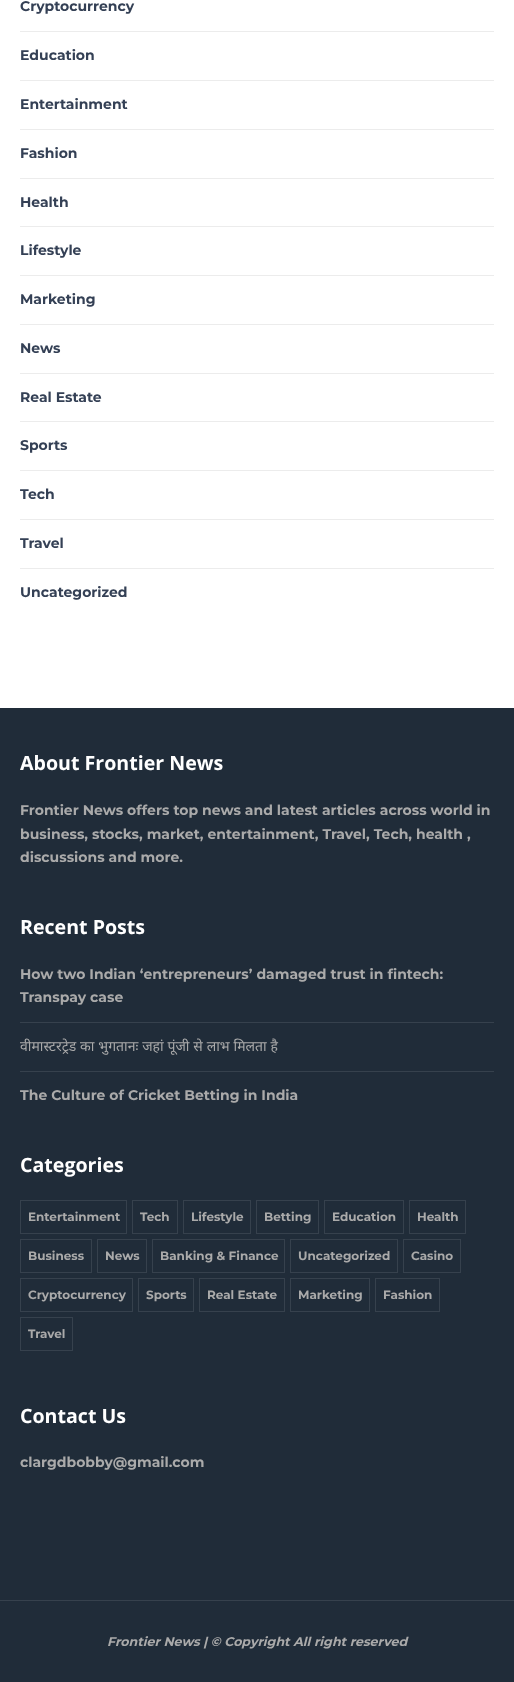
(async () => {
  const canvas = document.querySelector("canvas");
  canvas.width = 514;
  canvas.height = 1682;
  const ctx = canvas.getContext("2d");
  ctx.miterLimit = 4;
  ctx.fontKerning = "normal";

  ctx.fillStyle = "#ffffff";
  ctx.fillRect(0, 0, 514, 1682);
  for (const [x, y, w, h, color] of [
    [20, 31, 474, 1, "#ececec"],
    [20, 80, 474, 1, "#ececec"],
    [20, 129, 474, 1, "#ececec"],
    [20, 178, 474, 1, "#ececec"],
    [20, 226, 474, 1, "#ececec"],
    [20, 275, 474, 1, "#ececec"],
    [20, 324, 474, 1, "#ececec"],
    [20, 373, 474, 1, "#ececec"],
    [20, 421, 474, 1, "#ececec"],
    [20, 470, 474, 1, "#ececec"],
    [20, 519, 474, 1, "#ececec"],
    [20, 568, 474, 1, "#ececec"],
    [0, 708, 514, 974, "#202c39"],
    [0, 1600, 514, 1, "#36414d"],
    [20, 1022, 474, 1, "#36414d"],
    [20, 1071, 474, 1, "#36414d"],
  ]) {
    ctx.fillStyle = color;
    ctx.fillRect(x, y, w, h);
  }
  ctx.strokeStyle = "#36414d";
  ctx.strokeRect(20.5, 1200.5, 106, 33);
  ctx.strokeRect(132.5, 1200.5, 45, 33);
  ctx.strokeRect(183.5, 1200.5, 67, 33);
  ctx.strokeRect(256.5, 1200.5, 62, 33);
  ctx.strokeRect(324.5, 1200.5, 79, 33);
  ctx.strokeRect(409.5, 1200.5, 56, 33);
  ctx.strokeRect(20.5, 1239.5, 71, 33);
  ctx.strokeRect(97.5, 1239.5, 49, 33);
  ctx.strokeRect(152.5, 1239.5, 132, 33);
  ctx.strokeRect(290.5, 1239.5, 107, 33);
  ctx.strokeRect(403.5, 1239.5, 57, 33);
  ctx.strokeRect(20.5, 1278.5, 112, 33);
  ctx.strokeRect(138.5, 1278.5, 55, 33);
  ctx.strokeRect(199.5, 1278.5, 85, 33);
  ctx.strokeRect(290.5, 1278.5, 79, 33);
  ctx.strokeRect(375.5, 1278.5, 64, 33);
  ctx.strokeRect(20.5, 1317.5, 52, 33);
  ctx.font = "100 14px Montserrat";
  ctx.fillStyle = "#344055";
  for (const [text, x, y] of [
    ["Cryptocurrency", 20, 11],
    ["Education", 20, 60],
    ["Entertainment", 20, 109],
    ["Fashion", 20, 158],
    ["Health", 20, 207],
    ["Lifestyle", 20, 255],
    ["Marketing", 20, 304],
    ["News", 20, 353],
    ["Real Estate", 20, 402],
    ["Sports", 20, 450],
    ["Tech", 20, 499],
    ["Travel", 20, 548],
    ["Uncategorized", 20, 597],
  ]) {
    ctx.fillText(text, x, y);
  }
  ctx.font = "bold 19.6px Open Sans";
  ctx.fillStyle = "#ffffff";
  ctx.fillText("About Frontier News", 20, 770);
  ctx.font = "100 14px Montserrat";
  ctx.fillStyle = "#aaaaaa";
  for (const [text, x, y] of [
    ["Frontier News offers top news and latest articles across world in", 20, 815],
    ["business, stocks, market, entertainment, Travel, Tech, health ,", 20, 839],
    ["discussions and more.", 20, 862],
  ]) {
    ctx.fillText(text, x, y);
  }
  ctx.font = "bold 19.6px Open Sans";
  ctx.fillStyle = "#ffffff";
  ctx.fillText("Recent Posts", 20, 934);
  ctx.font = "100 14px Montserrat";
  ctx.fillStyle = "#aaaaaa";
  ctx.fillText("How two Indian ‘entrepreneurs’ damaged trust in fintech:", 20, 979);
  ctx.fillText("Transpay case", 20, 1002);
  ctx.wordSpacing = "0.25px";
  ctx.font = "14px Noto Sans";
  ctx.fillText("वीमास्टरट्रेड का भुगतानः जहां पूंजी से लाभ मिलता है", 20, 1051);
  ctx.wordSpacing = "0px";
  ctx.font = "100 14px Montserrat";
  ctx.fillText("The Culture of Cricket Betting in India", 20, 1100);
  ctx.font = "bold 19.6px Open Sans";
  ctx.fillStyle = "#ffffff";
  ctx.fillText("Categories", 20, 1172);
  ctx.font = "100 12px Montserrat";
  ctx.fillStyle = "#aaaaaa";
  for (const [text, x, y] of [
    ["Entertainment", 28, 1221],
    ["Tech", 140, 1221],
    ["Lifestyle", 191, 1221],
    ["Betting", 264, 1221],
    ["Education", 332, 1221],
    ["Health", 417, 1221],
    ["Business", 28, 1260],
    ["News", 105, 1260],
    ["Banking & Finance", 160, 1260],
    ["Uncategorized", 298, 1260],
    ["Casino", 411, 1260],
    ["Cryptocurrency", 28, 1299],
    ["Sports", 146, 1299],
    ["Real Estate", 207, 1299],
    ["Marketing", 298, 1299],
    ["Fashion", 383, 1299],
    ["Travel", 28, 1338],
  ]) {
    ctx.fillText(text, x, y);
  }
  ctx.font = "bold 19.6px Open Sans";
  ctx.fillStyle = "#ffffff";
  ctx.fillText("Contact Us", 20, 1423);
  ctx.font = "100 14px Montserrat";
  ctx.fillStyle = "#aaaaaa";
  ctx.fillText("clargdbobby@gmail.com", 20, 1467);
  ctx.font = "italic 100 12.6px Montserrat";
  ctx.fillText("Frontier News | © Copyright All right reserved", 107, 1646);
})();
